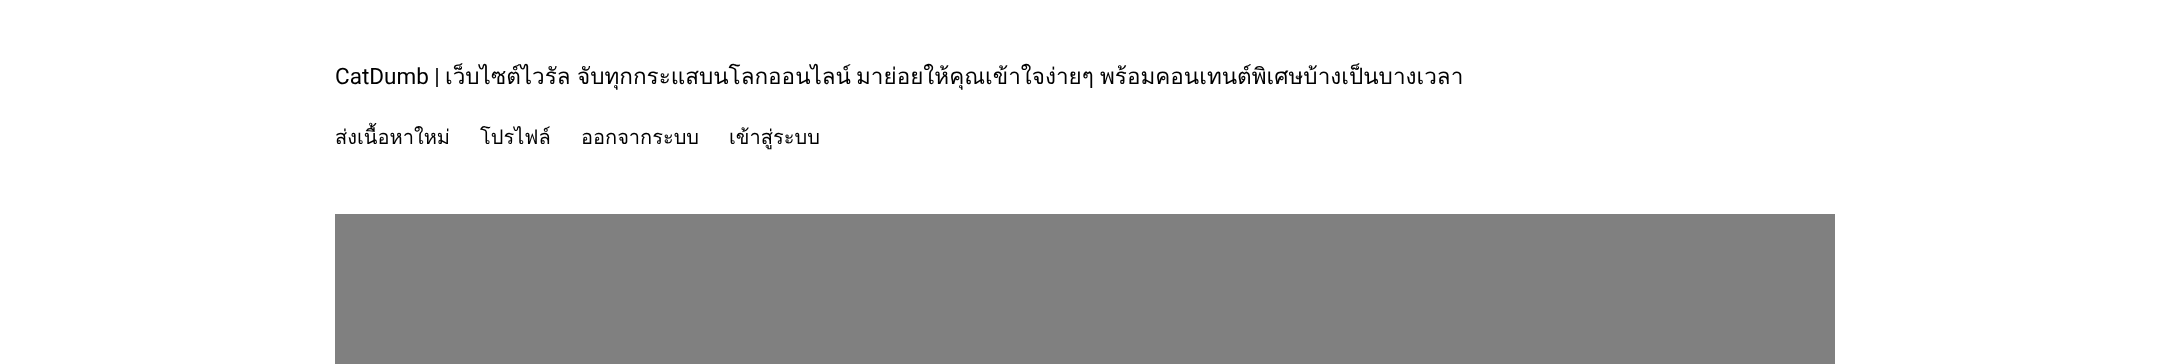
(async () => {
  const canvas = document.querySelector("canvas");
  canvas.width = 2170;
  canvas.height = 364;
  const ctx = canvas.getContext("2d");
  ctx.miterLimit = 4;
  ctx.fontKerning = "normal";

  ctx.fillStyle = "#ffffff";
  ctx.fillRect(0, 0, 2170, 364);
  ctx.fillStyle = "#808080";
  ctx.fillRect(335, 214, 1500, 150);
  ctx.font = "22.5px Roboto";
  ctx.fillStyle = "#000000";
  ctx.fillText("CatDumb |", 335, 84);
  ctx.font = "22.5px Loma";
  for (const [text, x, y] of [
    ["เว็บไซต์ไวรัล", 445, 84],
    ["จับทุกกระแสบนโลกออนไลน์", 577, 84],
    ["มาย่อยให้คุณเข้าใจง่ายๆ", 856, 84],
    ["พร้อมคอนเทนต์พิเศษบ้างเป็นบางเวลา", 1100, 84],
  ]) {
    ctx.fillText(text, x, y);
  }
  ctx.font = "20px Loma";
  for (const [text, x, y] of [
    ["ส่งเนื้อหาใหม่", 335, 144],
    ["โปรไฟล์", 480, 144],
    ["ออกจากระบบ", 581, 144],
    ["เข้าสู่ระบบ", 729, 144],
  ]) {
    ctx.fillText(text, x, y);
  }
})();
